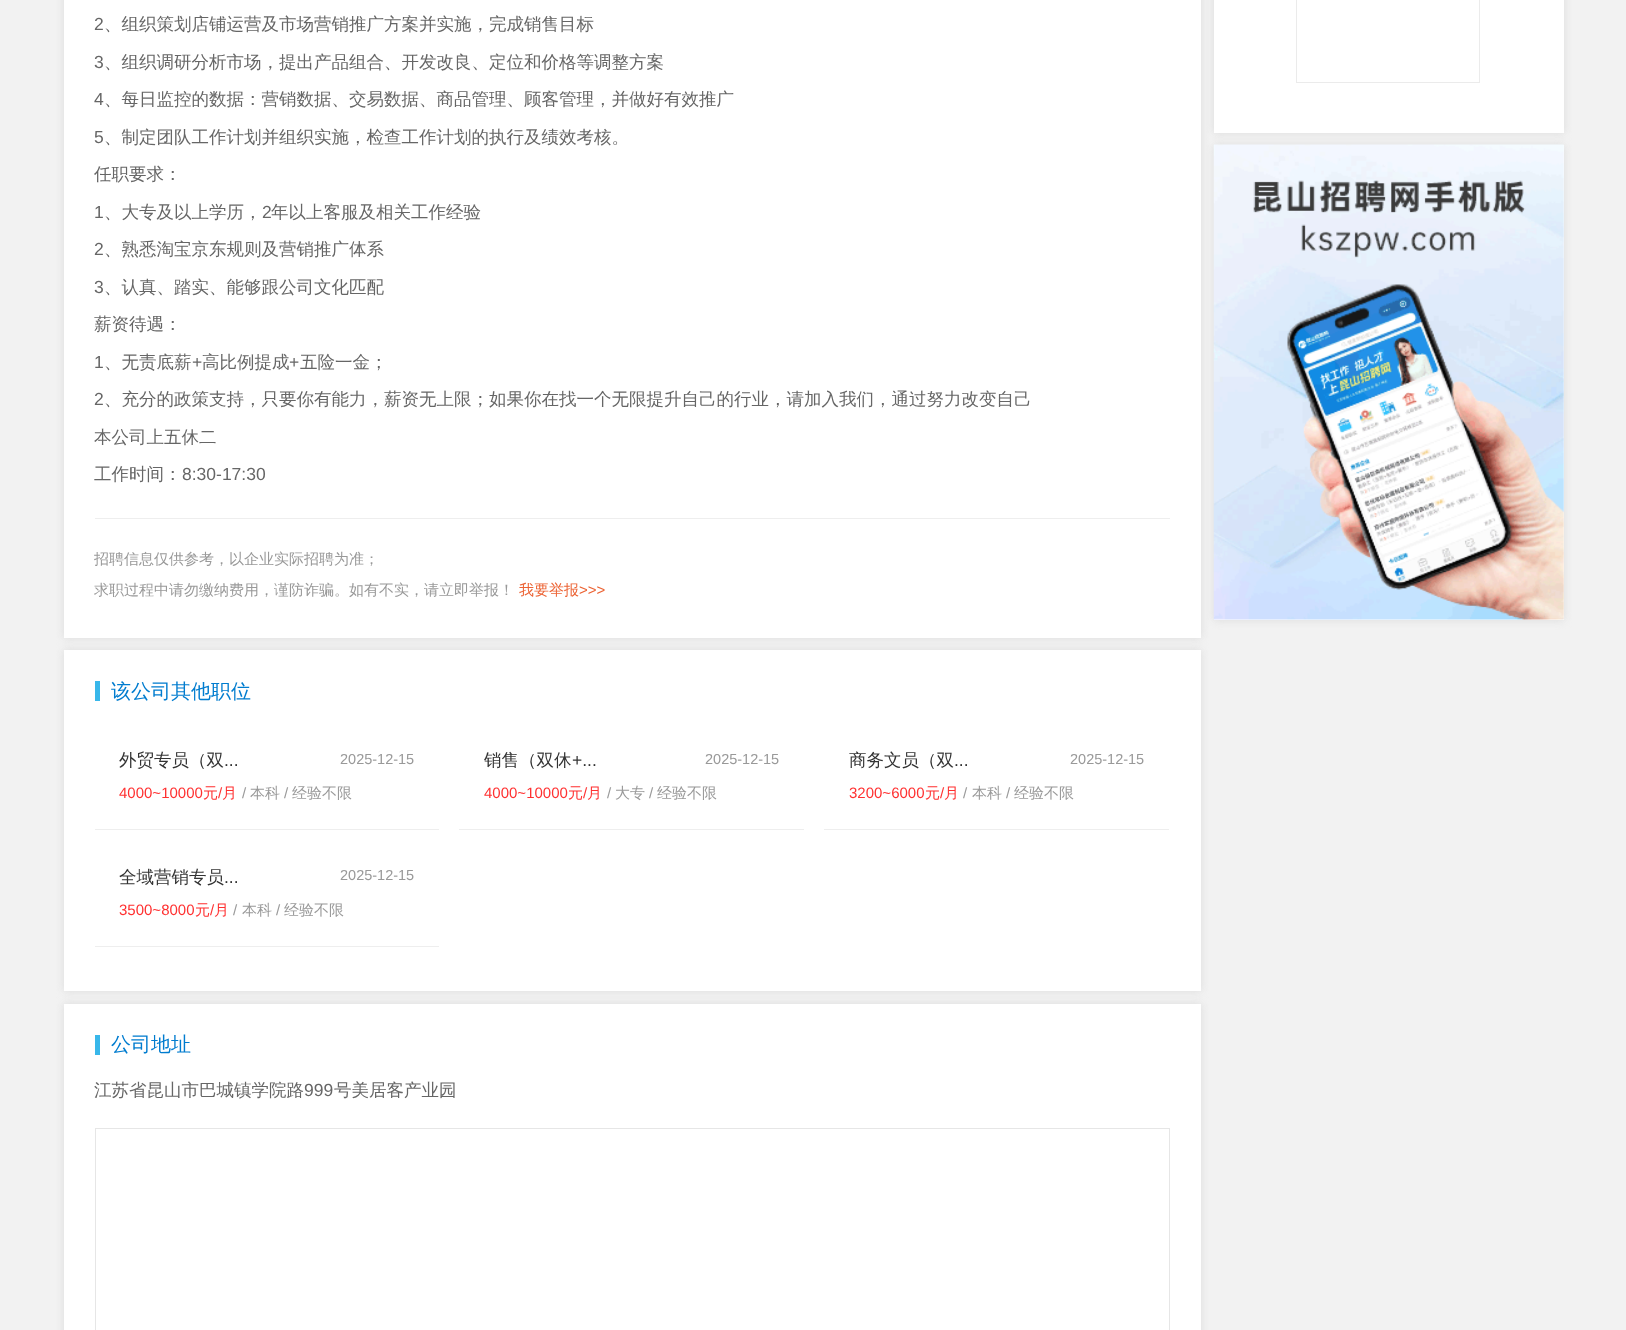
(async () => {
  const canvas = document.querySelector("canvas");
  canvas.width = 1626;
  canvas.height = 1330;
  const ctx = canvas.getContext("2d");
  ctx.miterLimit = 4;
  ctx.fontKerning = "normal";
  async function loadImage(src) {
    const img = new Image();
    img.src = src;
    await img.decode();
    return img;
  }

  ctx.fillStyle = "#f2f2f2";
  ctx.fillRect(0, 0, 1626, 1330);
  ctx.fillStyle = "#dbdbdb";
  ctx.filter = "blur(4px)";
  ctx.beginPath();
  ctx.rect(64, -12, 1137, 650);
  ctx.fill();
  ctx.filter = "none";
  ctx.fillStyle = "#ffffff";
  ctx.fillRect(64, 0, 1137, 638);
  ctx.fillStyle = "#eeeeee";
  ctx.fillRect(95, 518, 1075, 1);
  ctx.fillStyle = "#dbdbdb";
  ctx.filter = "blur(4px)";
  ctx.beginPath();
  ctx.rect(64, 650, 1137, 341);
  ctx.fill();
  ctx.filter = "none";
  for (const [x, y, w, h, color] of [
    [64, 650, 1137, 341, "#ffffff"],
    [95, 681, 5, 20, "#38b7ea"],
    [95, 829, 344, 1, "#eeeeee"],
    [459, 829, 345, 1, "#eeeeee"],
    [824, 829, 345, 1, "#eeeeee"],
    [95, 946, 344, 1, "#eeeeee"],
  ]) {
    ctx.fillStyle = color;
    ctx.fillRect(x, y, w, h);
  }
  ctx.fillStyle = "#dbdbdb";
  ctx.filter = "blur(4px)";
  ctx.beginPath();
  ctx.rect(64, 1004, 1137, 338);
  ctx.fill();
  ctx.filter = "none";
  ctx.fillStyle = "#ffffff";
  ctx.fillRect(64, 1004, 1137, 326);
  ctx.fillStyle = "#38b7ea";
  ctx.fillRect(95, 1035, 5, 20);
  ctx.strokeStyle = "#e6e6e6";
  ctx.strokeRect(95.5, 1128.5, 1074, 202);
  ctx.fillStyle = "#dbdbdb";
  ctx.filter = "blur(4px)";
  ctx.beginPath();
  ctx.rect(1214, -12, 350, 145);
  ctx.fill();
  ctx.filter = "none";
  ctx.fillStyle = "#ffffff";
  ctx.fillRect(1214, 0, 350, 133);
  ctx.strokeStyle = "#ebebeb";
  ctx.strokeRect(1296.5, -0.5, 183, 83);
  ctx.fillStyle = "#dbdbdb";
  ctx.filter = "blur(4px)";
  ctx.beginPath();
  ctx.rect(1214, 145, 350, 475);
  ctx.fill();
  ctx.filter = "none";
  ctx.fillStyle = "#ffffff";
  ctx.fillRect(1214, 145, 350, 475);
  ctx.drawImage(await loadImage("img/1.png"), 1213, 144, 351, 476);
  ctx.font = "17.5px Liberation Sans";
  ctx.fillStyle = "#666666";
  ctx.fillText("2", 94, 30);
  ctx.font = "500 17.5px WenQuanYi Zen Hei";
  ctx.fillText("、组织策划店铺运营及市场营销推广方案并实施，完成销售目标", 104, 30);
  ctx.font = "17.5px Liberation Sans";
  ctx.fillText("3", 94, 68);
  ctx.font = "500 17.5px WenQuanYi Zen Hei";
  ctx.fillText("、组织调研分析市场，提出产品组合、开发改良、定位和价格等调整方案", 104, 68);
  ctx.font = "17.5px Liberation Sans";
  ctx.fillText("4", 94, 105);
  ctx.font = "500 17.5px WenQuanYi Zen Hei";
  ctx.fillText("、每日监控的数据：营销数据、交易数据、商品管理、顾客管理，并做好有效推广", 104, 105);
  ctx.font = "17.5px Liberation Sans";
  ctx.fillText("5", 94, 143);
  ctx.font = "500 17.5px WenQuanYi Zen Hei";
  ctx.fillText("、制定团队工作计划并组织实施，检查工作计划的执行及绩效考核。", 104, 143);
  ctx.fillText("任职要求：", 94, 180);
  ctx.font = "17.5px Liberation Sans";
  ctx.fillText("1", 94, 218);
  ctx.font = "500 17.5px WenQuanYi Zen Hei";
  ctx.fillText("、大专及以上学历，", 104, 218);
  ctx.font = "17.5px Liberation Sans";
  ctx.fillText("2", 262, 218);
  ctx.font = "500 17.5px WenQuanYi Zen Hei";
  ctx.fillText("年以上客服及相关工作经验", 271, 218);
  ctx.font = "17.5px Liberation Sans";
  ctx.fillText("2", 94, 255);
  ctx.font = "500 17.5px WenQuanYi Zen Hei";
  ctx.fillText("、熟悉淘宝京东规则及营销推广体系", 104, 255);
  ctx.font = "17.5px Liberation Sans";
  ctx.fillText("3", 94, 293);
  ctx.font = "500 17.5px WenQuanYi Zen Hei";
  ctx.fillText("、认真、踏实、能够跟公司文化匹配", 104, 293);
  ctx.fillText("薪资待遇：", 94, 330);
  ctx.font = "17.5px Liberation Sans";
  ctx.fillText("1", 94, 368);
  ctx.font = "500 17.5px WenQuanYi Zen Hei";
  ctx.fillText("、无责底薪", 104, 368);
  ctx.font = "17.5px Liberation Sans";
  ctx.fillText("+", 192, 368);
  ctx.font = "500 17.5px WenQuanYi Zen Hei";
  ctx.fillText("高比例提成", 202, 368);
  ctx.font = "17.5px Liberation Sans";
  ctx.fillText("+", 289, 368);
  ctx.font = "500 17.5px WenQuanYi Zen Hei";
  ctx.fillText("五险一金；", 300, 368);
  ctx.font = "17.5px Liberation Sans";
  ctx.fillText("2", 94, 405);
  ctx.font = "500 17.5px WenQuanYi Zen Hei";
  for (const [text, x, y] of [
    ["、充分的政策支持，只要你有能力，薪资无上限；如果你在找一个无限提升自己的行业，请加入我们，通过努力改变自己", 104, 405],
    ["本公司上五休二", 94, 443],
    ["工作时间：", 94, 480],
  ]) {
    ctx.fillText(text, x, y);
  }
  ctx.font = "17.5px Liberation Sans";
  ctx.fillText("8:30-17:30", 182, 480);
  ctx.font = "500 15px WenQuanYi Zen Hei";
  ctx.fillStyle = "#999999";
  ctx.fillText("招聘信息仅供参考，以企业实际招聘为准；", 94, 564);
  ctx.fillText("求职过程中请勿缴纳费用，谨防诈骗。如有不实，请立即举报！", 94, 595);
  ctx.fillStyle = "#ec6334";
  ctx.fillText("我要举报", 519, 595);
  ctx.font = "15px Liberation Sans";
  ctx.fillText(">>>", 579, 595);
  ctx.font = "500 20px WenQuanYi Zen Hei";
  ctx.fillStyle = "#007ccf";
  ctx.fillText("该公司其他职位", 111, 698);
  ctx.font = "500 17.5px WenQuanYi Zen Hei";
  ctx.fillStyle = "#333333";
  ctx.fillText("外贸专员（双", 119, 766);
  ctx.font = "17.5px Liberation Sans";
  ctx.fillText("...", 224, 766);
  ctx.font = "14.5px Liberation Sans";
  ctx.fillStyle = "#999999";
  ctx.fillText("2025-12-15", 340, 764);
  ctx.font = "15px Liberation Sans";
  ctx.fillStyle = "#ff3030";
  ctx.fillText("4000~10000", 119, 798);
  ctx.font = "500 15px WenQuanYi Zen Hei";
  ctx.fillText("元", 203, 798);
  ctx.font = "15px Liberation Sans";
  ctx.fillText("/", 218, 798);
  ctx.font = "500 15px WenQuanYi Zen Hei";
  ctx.fillText("月", 222, 798);
  ctx.font = "15px Liberation Sans";
  ctx.fillStyle = "#999999";
  ctx.fillText("/", 242, 798);
  ctx.font = "500 15px WenQuanYi Zen Hei";
  ctx.fillText("本科", 250, 798);
  ctx.font = "15px Liberation Sans";
  ctx.fillText("/", 284, 798);
  ctx.font = "500 15px WenQuanYi Zen Hei";
  ctx.fillText("经验不限", 292, 798);
  ctx.font = "500 17.5px WenQuanYi Zen Hei";
  ctx.fillStyle = "#333333";
  ctx.fillText("销售（双休", 484, 766);
  ctx.font = "17.5px Liberation Sans";
  ctx.fillText("+...", 572, 766);
  ctx.font = "14.5px Liberation Sans";
  ctx.fillStyle = "#999999";
  ctx.fillText("2025-12-15", 705, 764);
  ctx.font = "15px Liberation Sans";
  ctx.fillStyle = "#ff3030";
  ctx.fillText("4000~10000", 484, 798);
  ctx.font = "500 15px WenQuanYi Zen Hei";
  ctx.fillText("元", 568, 798);
  ctx.font = "15px Liberation Sans";
  ctx.fillText("/", 583, 798);
  ctx.font = "500 15px WenQuanYi Zen Hei";
  ctx.fillText("月", 587, 798);
  ctx.font = "15px Liberation Sans";
  ctx.fillStyle = "#999999";
  ctx.fillText("/", 607, 798);
  ctx.font = "500 15px WenQuanYi Zen Hei";
  ctx.fillText("大专", 615, 798);
  ctx.font = "15px Liberation Sans";
  ctx.fillText("/", 649, 798);
  ctx.font = "500 15px WenQuanYi Zen Hei";
  ctx.fillText("经验不限", 657, 798);
  ctx.font = "500 17.5px WenQuanYi Zen Hei";
  ctx.fillStyle = "#333333";
  ctx.fillText("商务文员（双", 849, 766);
  ctx.font = "17.5px Liberation Sans";
  ctx.fillText("...", 954, 766);
  ctx.font = "14.5px Liberation Sans";
  ctx.fillStyle = "#999999";
  ctx.fillText("2025-12-15", 1070, 764);
  ctx.font = "15px Liberation Sans";
  ctx.fillStyle = "#ff3030";
  ctx.fillText("3200~6000", 849, 798);
  ctx.font = "500 15px WenQuanYi Zen Hei";
  ctx.fillText("元", 925, 798);
  ctx.font = "15px Liberation Sans";
  ctx.fillText("/", 940, 798);
  ctx.font = "500 15px WenQuanYi Zen Hei";
  ctx.fillText("月", 944, 798);
  ctx.font = "15px Liberation Sans";
  ctx.fillStyle = "#999999";
  ctx.fillText("/", 963, 798);
  ctx.font = "500 15px WenQuanYi Zen Hei";
  ctx.fillText("本科", 972, 798);
  ctx.font = "15px Liberation Sans";
  ctx.fillText("/", 1006, 798);
  ctx.font = "500 15px WenQuanYi Zen Hei";
  ctx.fillText("经验不限", 1014, 798);
  ctx.font = "500 17.5px WenQuanYi Zen Hei";
  ctx.fillStyle = "#333333";
  ctx.fillText("全域营销专员", 119, 883);
  ctx.font = "14.5px Liberation Sans";
  ctx.fillStyle = "#999999";
  ctx.fillText("2025-12-15", 340, 880);
  ctx.font = "17.5px Liberation Sans";
  ctx.fillStyle = "#333333";
  ctx.fillText("...", 224, 883);
  ctx.font = "15px Liberation Sans";
  ctx.fillStyle = "#ff3030";
  ctx.fillText("3500~8000", 119, 915);
  ctx.font = "500 15px WenQuanYi Zen Hei";
  ctx.fillText("元", 195, 915);
  ctx.font = "15px Liberation Sans";
  ctx.fillText("/", 210, 915);
  ctx.font = "500 15px WenQuanYi Zen Hei";
  ctx.fillText("月", 214, 915);
  ctx.font = "15px Liberation Sans";
  ctx.fillStyle = "#999999";
  ctx.fillText("/", 233, 915);
  ctx.font = "500 15px WenQuanYi Zen Hei";
  ctx.fillText("本科", 242, 915);
  ctx.font = "15px Liberation Sans";
  ctx.fillText("/", 276, 915);
  ctx.font = "500 15px WenQuanYi Zen Hei";
  ctx.fillText("经验不限", 284, 915);
  ctx.font = "500 20px WenQuanYi Zen Hei";
  ctx.fillStyle = "#007ccf";
  ctx.fillText("公司地址", 111, 1051);
  ctx.font = "500 17.5px WenQuanYi Zen Hei";
  ctx.fillStyle = "#666666";
  ctx.fillText("江苏省昆山市巴城镇学院路", 94, 1096);
  ctx.font = "17.5px Liberation Sans";
  ctx.fillText("999", 304, 1096);
  ctx.font = "500 17.5px WenQuanYi Zen Hei";
  ctx.fillText("号美居客产业园", 334, 1096);
})();
